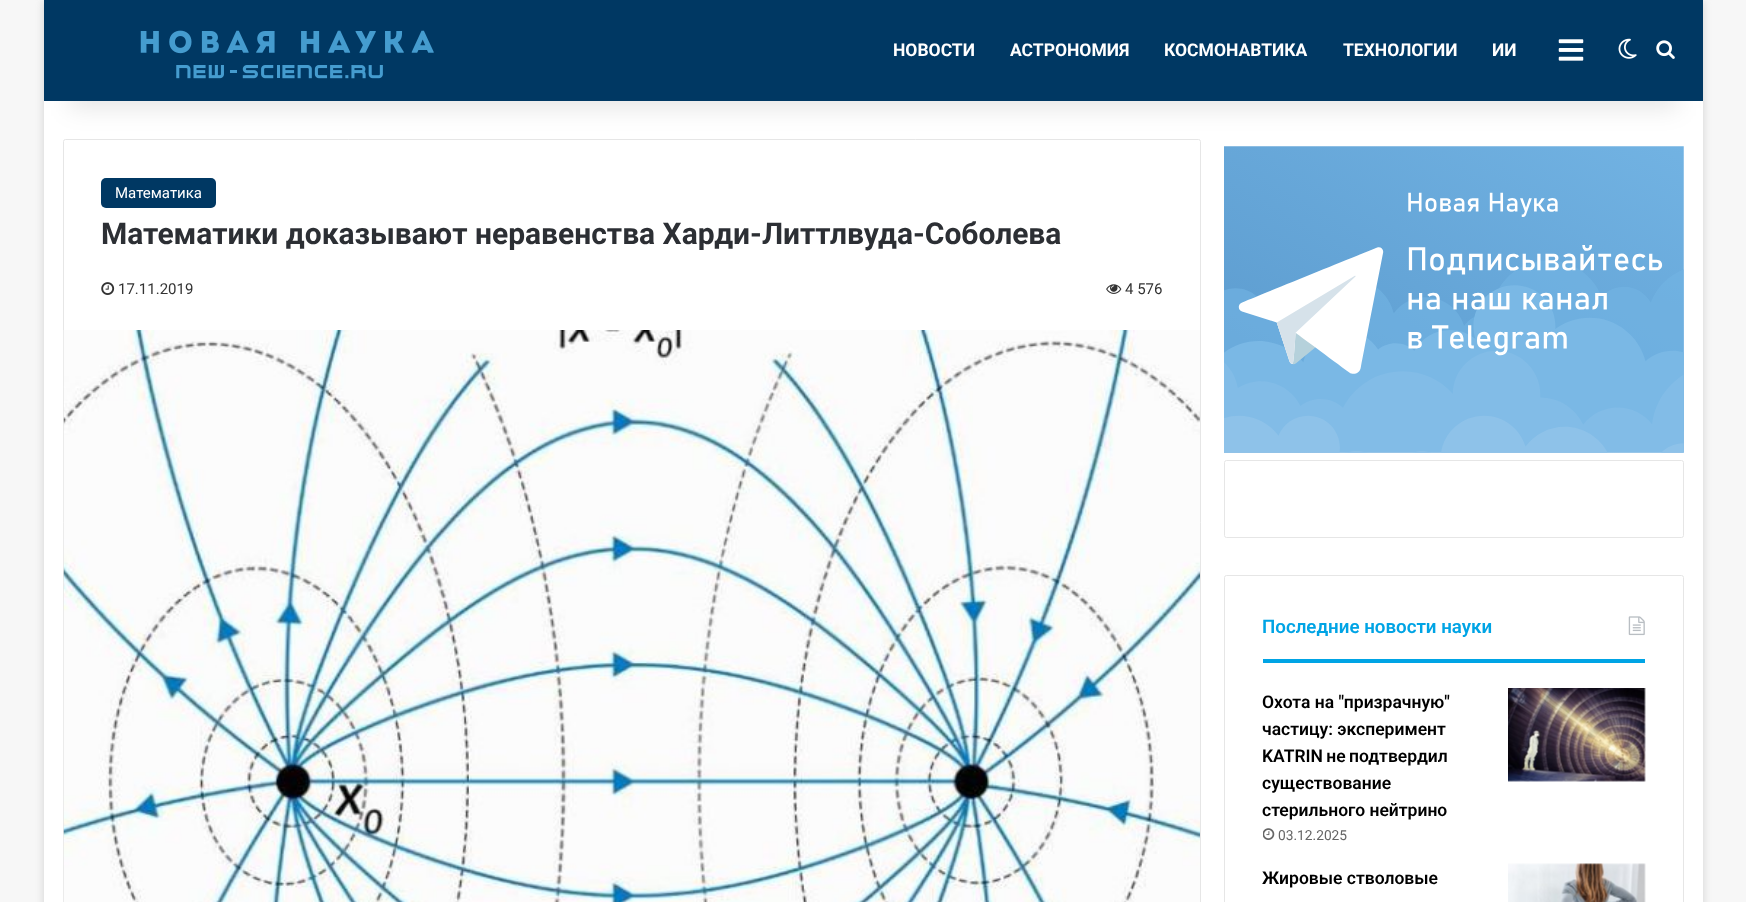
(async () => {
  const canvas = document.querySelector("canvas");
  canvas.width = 1746;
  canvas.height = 902;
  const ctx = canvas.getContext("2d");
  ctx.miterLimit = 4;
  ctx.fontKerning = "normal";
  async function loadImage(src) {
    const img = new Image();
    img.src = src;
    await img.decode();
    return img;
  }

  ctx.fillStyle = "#f7f7f7";
  ctx.fillRect(0, 0, 1746, 902);
  ctx.fillStyle = "rgba(171, 171, 171, 0.5)";
  ctx.filter = "blur(4.5px)";
  ctx.beginPath();
  ctx.rect(44, 1, 1659, 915);
  ctx.fill();
  ctx.filter = "none";
  ctx.fillStyle = "#ffffff";
  ctx.fillRect(44, 101, 1659, 801);
  ctx.beginPath();
  ctx.roundRect(63.5, 139.5, 1137, 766, 2);
  ctx.strokeStyle = "#e6e6e6";
  ctx.stroke();
  ctx.drawImage(await loadImage("img/8.png"), 1224, 146, 460, 307);
  ctx.fillStyle = "rgba(0, 0, 0, 0.1)";
  ctx.filter = "blur(12.5px)";
  ctx.beginPath();
  ctx.rect(69, 56, 1609, 52);
  ctx.fill();
  ctx.filter = "none";
  ctx.fillStyle = "#003863";
  ctx.fillRect(44, 0, 1659, 101);
  ctx.drawImage(await loadImage("img/1.png"), 140, 30, 294, 49);
  ctx.drawImage(await loadImage("img/2.png"), 1558, 39, 26, 22);
  ctx.drawImage(await loadImage("img/3.png"), 1618, 38, 19, 21);
  ctx.drawImage(await loadImage("img/4.png"), 1656, 40, 19, 19);
  ctx.beginPath();
  ctx.roundRect(101, 178, 115, 30, 5);
  ctx.fill();
  ctx.drawImage(await loadImage("img/5.png"), 101, 282, 14, 13);
  ctx.drawImage(await loadImage("img/6.png"), 1106, 284, 16, 10);
  ctx.drawImage(await loadImage("img/7.png"), 63, 330, 1137, 572);
  ctx.beginPath();
  ctx.roundRect(1224.5, 460.5, 459, 77, 2);
  ctx.stroke();
  ctx.beginPath();
  ctx.roundRect(1224.5, 575.5, 459, 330, 2);
  ctx.stroke();
  ctx.fillStyle = "#00a4e5";
  ctx.fillRect(1263, 659, 382, 4);
  ctx.drawImage(await loadImage("img/9.png"), 1628, 616, 17, 20);
  ctx.drawImage(await loadImage("img/10.png"), 1263, 828, 12, 12);
  ctx.drawImage(await loadImage("img/11.png"), 1508, 688, 138, 94);
  ctx.drawImage(await loadImage("img/12.png"), 1508, 863, 138, 39);
  ctx.font = "bold 17.5px Roboto";
  ctx.fillStyle = "#ffffff";
  for (const [text, x, y] of [
    ["НОВОСТИ", 893, 56],
    ["АСТРОНОМИЯ", 1010, 56],
    ["КОСМОНАВТИКА", 1164, 56],
    ["ТЕХНОЛОГИИ", 1343, 56],
    ["ИИ", 1492, 56],
  ]) {
    ctx.fillText(text, x, y);
  }
  ctx.font = "15px Roboto";
  ctx.fillText("Математика", 115, 198);
  ctx.font = "bold 30px Roboto";
  ctx.fillStyle = "#2c2f34";
  ctx.fillText("Математики доказывают неравенства Харди-Литтлвуда-Соболева", 101, 244);
  ctx.font = "15px Roboto";
  ctx.fillStyle = "#333333";
  ctx.fillText("17.11.2019", 118, 294);
  ctx.fillText("4 576", 1125, 294);
  ctx.font = "600 18.75px Roboto";
  ctx.fillStyle = "#00a4e5";
  ctx.fillText("Последние новости науки", 1262, 633);
  ctx.font = "600 17.5px Roboto";
  ctx.fillStyle = "#000000";
  ctx.fillText("Охота на \"призрачную\"", 1262, 708);
  ctx.fillText("частицу: эксперимент", 1262, 735);
  ctx.wordSpacing = "-1px";
  ctx.fillText("KATRIN не подтвердил", 1262, 762);
  ctx.wordSpacing = "0px";
  ctx.fillText("существование", 1262, 789);
  ctx.fillText("стерильного нейтрино", 1262, 816);
  ctx.font = "13.75px Roboto";
  ctx.fillStyle = "#666666";
  ctx.fillText("03.12.2025", 1278, 840);
  ctx.font = "600 17.5px Roboto";
  ctx.fillStyle = "#000000";
  ctx.fillText("Жировые стволовые", 1262, 884);
})();
